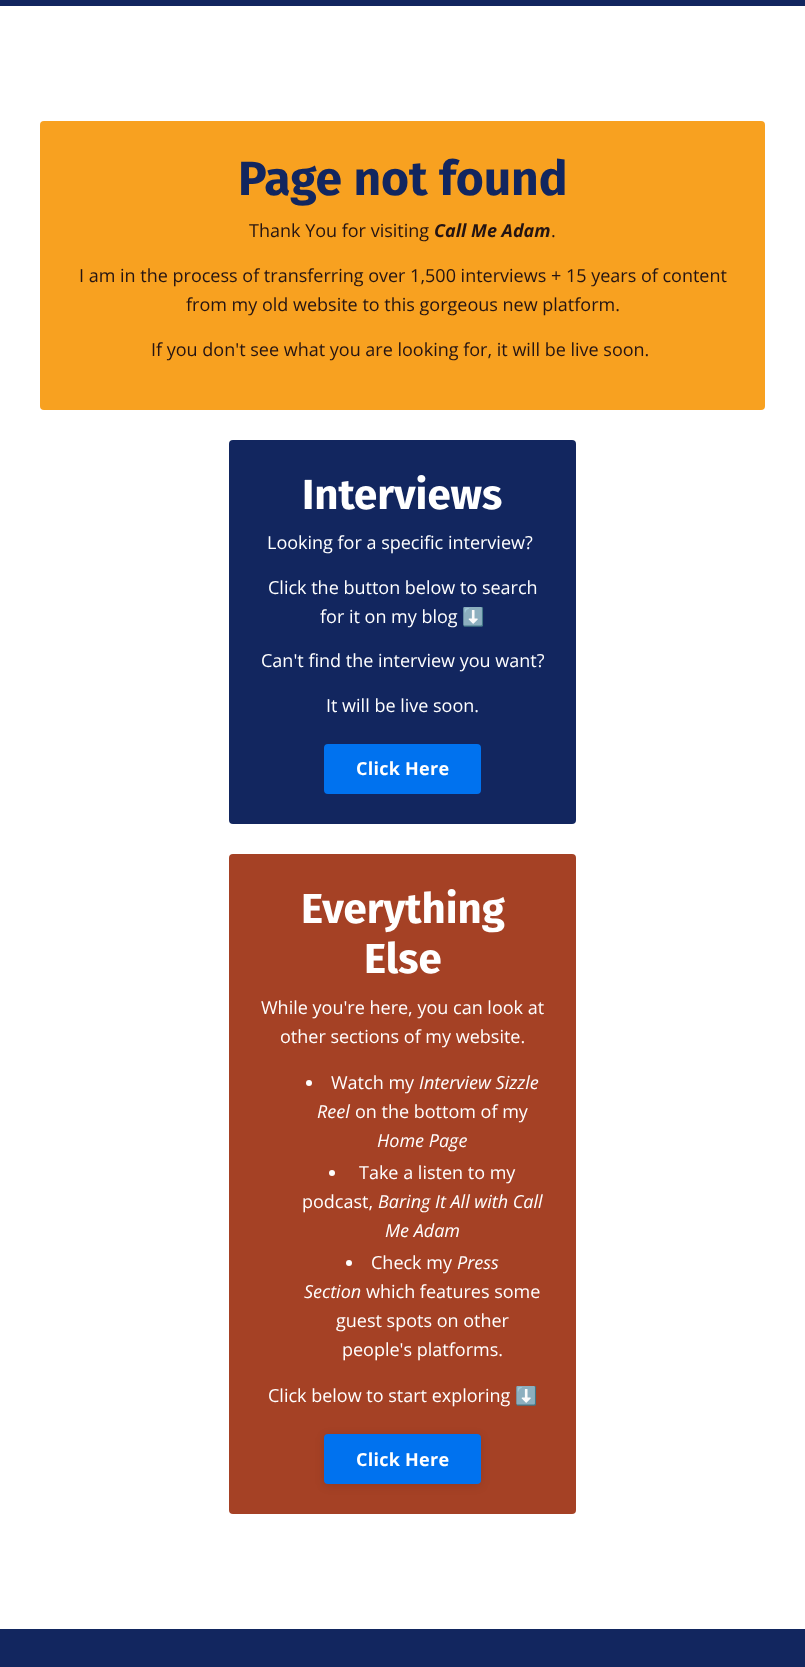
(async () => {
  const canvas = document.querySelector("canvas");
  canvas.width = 805;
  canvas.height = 1667;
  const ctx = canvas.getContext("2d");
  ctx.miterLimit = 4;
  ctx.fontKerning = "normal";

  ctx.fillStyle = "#ffffff";
  ctx.fillRect(0, 0, 805, 1667);
  ctx.fillStyle = "#12265f";
  ctx.fillRect(0, 0, 805, 6);
  ctx.fillStyle = "#f8a120";
  ctx.beginPath();
  ctx.roundRect(40, 121, 725, 289, 4);
  ctx.fill();
  ctx.fillStyle = "#12265f";
  ctx.beginPath();
  ctx.roundRect(229, 440, 347, 384, 4);
  ctx.fill();
  ctx.fillStyle = "#0072ef";
  ctx.beginPath();
  ctx.roundRect(325, 745, 155, 48, 3);
  ctx.fill();
  ctx.strokeStyle = "#0072ef";
  ctx.lineWidth = 2;
  ctx.stroke();
  ctx.fillStyle = "#a54125";
  ctx.beginPath();
  ctx.roundRect(229, 854, 347, 660, 4);
  ctx.fill();
  ctx.fillStyle = "#ffffff";
  ctx.beginPath();
  ctx.arc(309, 1083, 3, 0, Math.PI * 2);
  ctx.fill();
  ctx.beginPath();
  ctx.arc(332, 1173, 3, 0, Math.PI * 2);
  ctx.fill();
  ctx.beginPath();
  ctx.arc(349, 1263, 3, 0, Math.PI * 2);
  ctx.fill();
  ctx.fillStyle = "rgba(0, 0, 0, 0.1)";
  ctx.filter = "blur(5px)";
  ctx.beginPath();
  ctx.roundRect(324, 1436, 157, 50, 4);
  ctx.fill();
  ctx.filter = "none";
  ctx.fillStyle = "#0072ef";
  ctx.beginPath();
  ctx.roundRect(325, 1435, 155, 48, 3);
  ctx.fill();
  ctx.stroke();
  ctx.fillStyle = "#12265f";
  ctx.fillRect(0, 1629, 805, 38);
  ctx.font = "bold 48px Fira Sans";
  ctx.fillText("Page not found", 238, 195);
  ctx.font = "18px Open Sans";
  ctx.fillStyle = "#241413";
  ctx.fillText("Thank You for visiting", 249, 237);
  ctx.font = "italic bold 18px Open Sans";
  ctx.fillText("Call Me Adam", 434, 237);
  ctx.font = "18px Open Sans";
  for (const [text, x, y] of [
    [".", 551, 237],
    ["I am in the process of transferring over 1,500 interviews + 15 years of content", 79, 282],
    ["from my old website to this gorgeous new platform.", 186, 311],
    ["If you don't see what you are looking for, it will be live soon.", 151, 356],
  ]) {
    ctx.fillText(text, x, y);
  }
  ctx.font = "bold 42px Fira Sans";
  ctx.fillStyle = "#ffffff";
  ctx.fillText("Interviews", 302, 509);
  ctx.font = "18px Open Sans";
  for (const [text, x, y] of [
    ["Looking for a specific interview?", 267, 549],
    ["Click the button below to search", 268, 594],
    ["for it on my blog", 320, 623],
  ]) {
    ctx.fillText(text, x, y);
  }
  ctx.font = "18px Noto Color Emoji";
  ctx.fillText("⬇️", 462, 623);
  ctx.font = "18px Open Sans";
  ctx.fillText("Can't find the interview you want?", 261, 667);
  ctx.fillText("It will be live soon.", 326, 712);
  ctx.letterSpacing = "0.25px";
  ctx.font = "bold 18px Open Sans";
  ctx.fillText("Click Here", 356, 775);
  ctx.letterSpacing = "0px";
  ctx.font = "bold 42px Fira Sans";
  ctx.fillText("Everything", 301, 923);
  ctx.fillText("Else", 364, 973);
  ctx.font = "18px Open Sans";
  for (const [text, x, y] of [
    ["While you're here, you can look at", 261, 1014],
    ["other sections of my website.", 280, 1043],
    ["Watch my", 331, 1089],
  ]) {
    ctx.fillText(text, x, y);
  }
  ctx.font = "italic 18px Open Sans";
  ctx.fillText("Interview Sizzle", 419, 1089);
  ctx.fillText("Reel", 317, 1118);
  ctx.font = "18px Open Sans";
  ctx.fillText("on the bottom of my", 355, 1118);
  ctx.font = "italic 18px Open Sans";
  ctx.fillText("Home Page", 377, 1147);
  ctx.font = "18px Open Sans";
  ctx.fillText("Take a listen to my", 359, 1179);
  ctx.fillText("podcast,", 302, 1208);
  ctx.font = "italic 18px Open Sans";
  ctx.fillText("Baring It All with Call", 378, 1208);
  ctx.fillText("Me Adam", 385, 1237);
  ctx.font = "18px Open Sans";
  ctx.fillText("Check my", 371, 1269);
  ctx.font = "italic 18px Open Sans";
  ctx.fillText("Press", 457, 1269);
  ctx.fillText("Section", 304, 1298);
  ctx.font = "18px Open Sans";
  for (const [text, x, y] of [
    ["which features some", 366, 1298],
    ["guest spots on other", 336, 1327],
    ["people's platforms.", 342, 1356],
    ["Click below to start exploring", 268, 1402],
  ]) {
    ctx.fillText(text, x, y);
  }
  ctx.font = "18px Noto Color Emoji";
  ctx.fillText("⬇️", 515, 1402);
  ctx.letterSpacing = "0.25px";
  ctx.font = "bold 18px Open Sans";
  ctx.fillText("Click Here", 356, 1466);
})();
